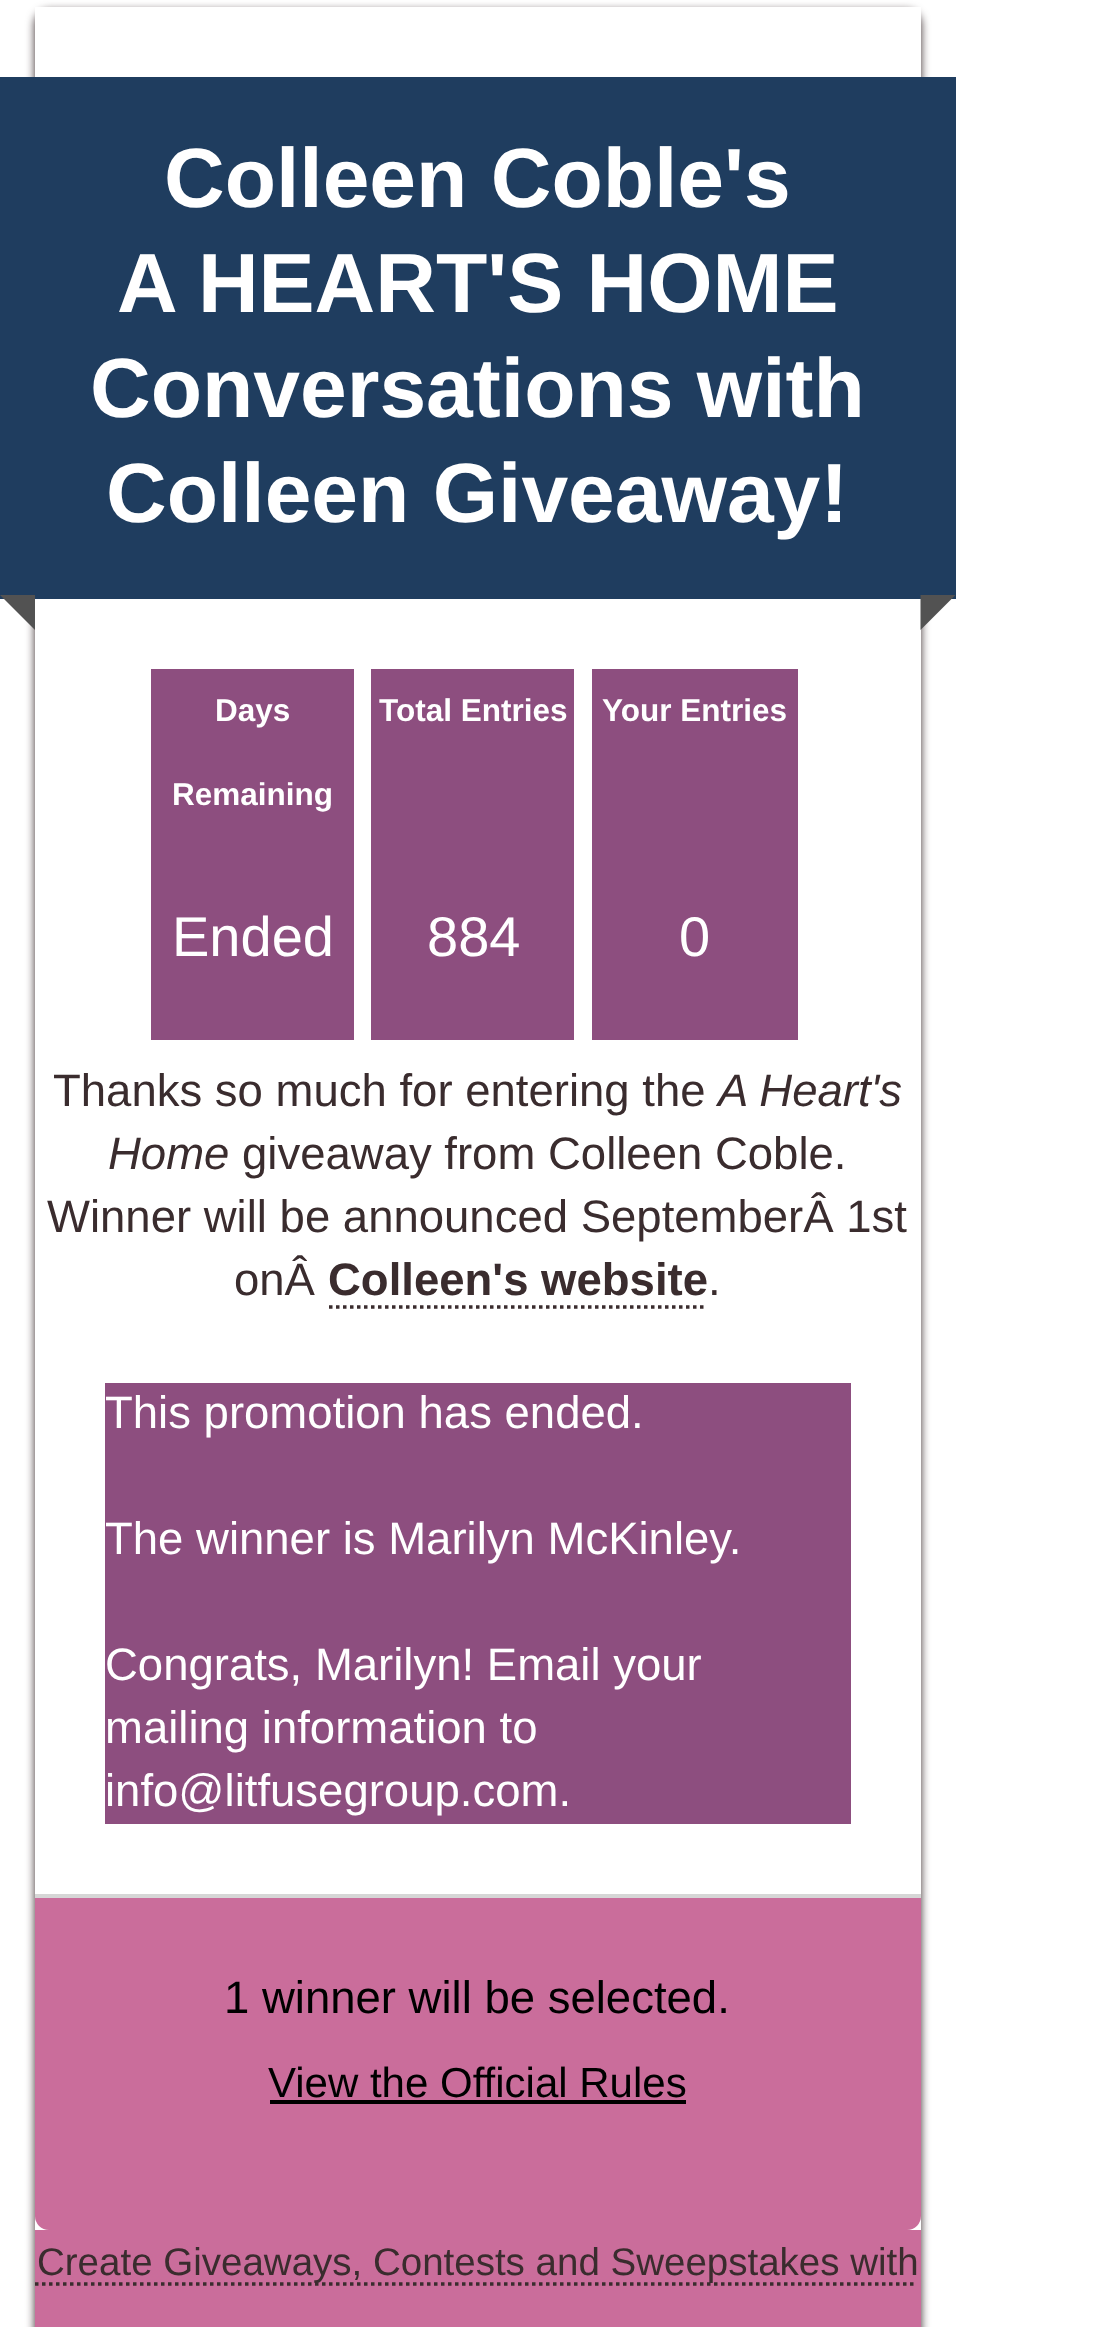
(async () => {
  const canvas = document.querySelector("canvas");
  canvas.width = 1105;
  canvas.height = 2327;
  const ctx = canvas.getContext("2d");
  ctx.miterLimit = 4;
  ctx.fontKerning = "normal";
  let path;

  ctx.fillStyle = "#ffffff";
  ctx.fillRect(0, 0, 1105, 2327);
  ctx.fillStyle = "#3a2c2e";
  ctx.filter = "blur(5px)";
  ctx.beginPath();
  ctx.roundRect(35, 11, 886, 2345, 14);
  ctx.fill();
  ctx.filter = "none";
  for (const [x, y, w, h, color] of [
    [35, 599, 886, 1631, "#ffffff"],
    [35, 7, 886, 70, "#ffffff"],
    [0, 77, 956, 522, "#1f3d5f"],
  ]) {
    ctx.fillStyle = color;
    ctx.fillRect(x, y, w, h);
  }
  ctx.fillStyle = "#525252";
  path = new Path2D("M0 595H35V630Z");
  ctx.fill(path);
  path = new Path2D("M920.5 595H955.5L920.5 630Z");
  ctx.fill(path);
  for (const [x, y, w, h, color] of [
    [151, 669, 203, 371, "#8d4e7f"],
    [371, 669, 203, 371, "#8d4e7f"],
    [592, 669, 206, 371, "#8d4e7f"],
  ]) {
    ctx.fillStyle = color;
    ctx.fillRect(x, y, w, h);
  }
  path = new Path2D("M329 1307H707");
  ctx.strokeStyle = "#3a2c2e";
  ctx.lineWidth = 3.5;
  ctx.setLineDash([3.5, 3.5]);
  ctx.stroke(path);
  ctx.fillRect(105, 1383, 746, 441);
  ctx.fillStyle = "#ca6d9b";
  ctx.beginPath();
  ctx.roundRect(35, 1894, 886, 336, [0, 0, 14, 14]);
  ctx.fill();
  for (const [x, y, w, h, color] of [
    [35, 1894, 886, 4, "#d6d6d6"],
    [270, 2100, 416, 4, "#000000"],
    [35, 2230, 886, 97, "#ca6d9b"],
  ]) {
    ctx.fillStyle = color;
    ctx.fillRect(x, y, w, h);
  }
  path = new Path2D("M35 2284H917");
  ctx.stroke(path);
  ctx.font = "bold 84px Liberation Sans";
  ctx.fillStyle = "#ffffff";
  for (const [text, x, y] of [
    ["Colleen Coble's", 164, 207],
    ["A HEART'S HOME", 117, 312],
    ["Conversations with", 90, 417],
    ["Colleen Giveaway!", 106, 522],
  ]) {
    ctx.fillText(text, x, y);
  }
  ctx.font = "bold 31.5px Liberation Sans";
  ctx.fillText("Days", 215, 721);
  ctx.fillText("Remaining", 172, 805);
  ctx.font = "56px Liberation Sans";
  ctx.fillText("Ended", 172, 956);
  ctx.font = "bold 31.5px Liberation Sans";
  ctx.fillText("Total Entries", 379, 721);
  ctx.font = "56px Liberation Sans";
  ctx.fillText("884", 427, 956);
  ctx.font = "bold 31.5px Liberation Sans";
  ctx.fillText("Your Entries", 602, 721);
  ctx.font = "56px Liberation Sans";
  ctx.fillText("0", 679, 956);
  ctx.font = "45.5px Liberation Sans";
  ctx.fillStyle = "#3a2c2e";
  ctx.fillText("Thanks so much for entering the", 53, 1106);
  ctx.font = "italic 45.5px Liberation Sans";
  ctx.fillText("A Heart's", 718, 1106);
  ctx.fillText("Home", 108, 1169);
  ctx.font = "45.5px Liberation Sans";
  for (const [text, x, y] of [
    ["giveaway from Colleen Coble.", 242, 1169],
    ["Winner will be announced SeptemberÂ 1st", 47, 1232],
    ["onÂ", 234, 1295],
  ]) {
    ctx.fillText(text, x, y);
  }
  ctx.font = "bold 45.5px Liberation Sans";
  ctx.fillText("Colleen's website", 328, 1295);
  ctx.font = "45.5px Liberation Sans";
  ctx.fillText(".", 708, 1295);
  ctx.fillStyle = "#ffffff";
  for (const [text, x, y] of [
    ["This promotion has ended.", 105, 1428],
    ["The winner is Marilyn McKinley.", 105, 1554],
    ["Congrats, Marilyn! Email your", 105, 1680],
    ["mailing information to", 105, 1743],
    ["info@litfusegroup.com.", 105, 1806],
  ]) {
    ctx.fillText(text, x, y);
  }
  ctx.fillStyle = "#000000";
  ctx.fillText("1 winner will be selected.", 224, 2013);
  ctx.font = "42px Liberation Sans";
  ctx.fillText("View the Official Rules", 268, 2097);
  ctx.font = "38.5px Liberation Sans";
  ctx.fillStyle = "#3a2c2e";
  ctx.fillText("Create Giveaways, Contests and Sweepstakes with", 37, 2275);
})();
